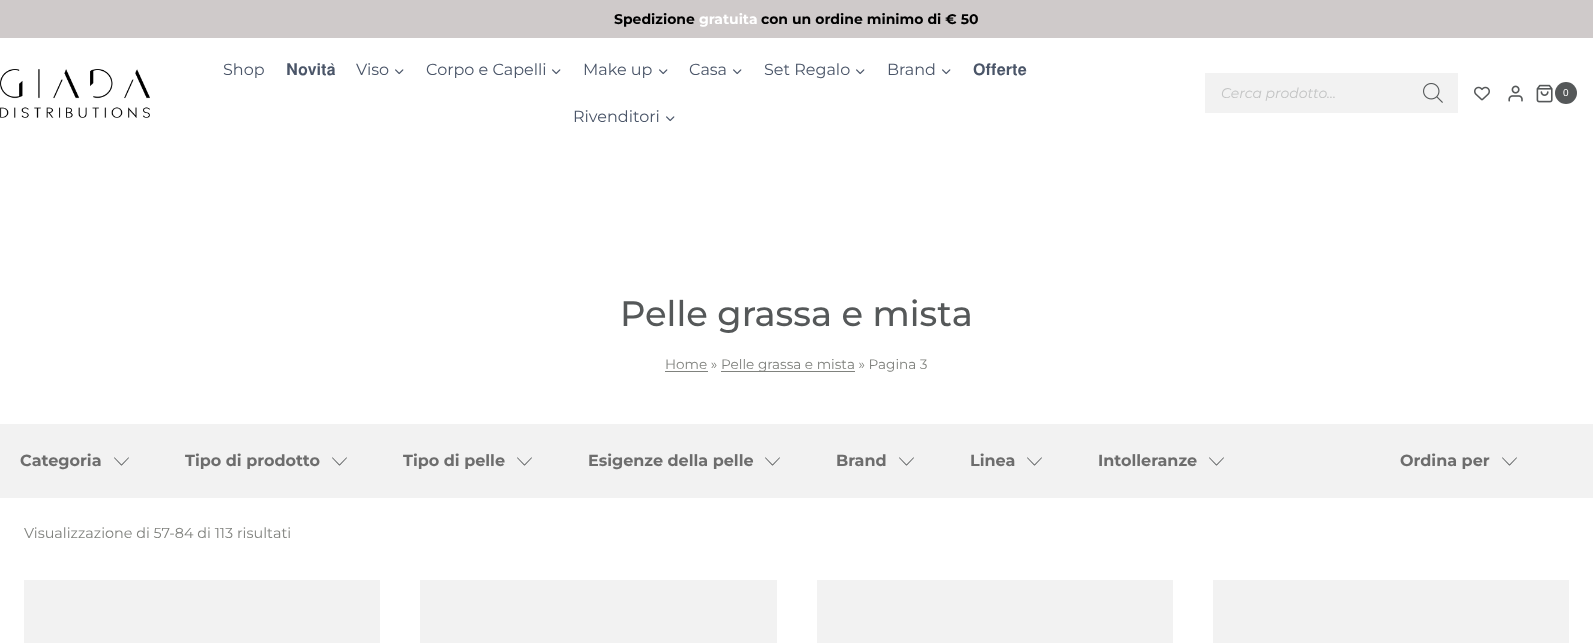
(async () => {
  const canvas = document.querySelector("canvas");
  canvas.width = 1593;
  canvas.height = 643;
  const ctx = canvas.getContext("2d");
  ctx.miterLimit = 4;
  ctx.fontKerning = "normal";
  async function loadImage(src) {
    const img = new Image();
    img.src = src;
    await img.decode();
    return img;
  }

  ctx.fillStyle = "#ffffff";
  ctx.fillRect(0, 0, 1593, 643);
  ctx.fillStyle = "#cfcaca";
  ctx.fillRect(0, 0, 1593, 38);
  ctx.drawImage(await loadImage("img/1.png"), 0, 69, 150, 49);
  ctx.drawImage(await loadImage("img/2.png"), 395, 69, 9, 6);
  ctx.drawImage(await loadImage("img/2.png"), 552, 69, 9, 6);
  ctx.drawImage(await loadImage("img/2.png"), 659, 69, 9, 6);
  ctx.drawImage(await loadImage("img/2.png"), 733, 69, 9, 6);
  ctx.drawImage(await loadImage("img/2.png"), 856, 69, 9, 6);
  ctx.drawImage(await loadImage("img/2.png"), 942, 69, 9, 6);
  ctx.drawImage(await loadImage("img/2.png"), 666, 116, 9, 6);
  ctx.fillStyle = "#f2f2f2";
  ctx.fillRect(1205, 73, 253, 40);
  ctx.drawImage(await loadImage("img/3.png"), 1423, 83, 20, 20);
  ctx.drawImage(await loadImage("img/4.png"), 1474, 86, 16, 15);
  ctx.drawImage(await loadImage("img/5.png"), 1508, 85, 15, 17);
  ctx.drawImage(await loadImage("img/6.png"), 1536, 84, 17, 19);
  ctx.fillStyle = "#555859";
  ctx.beginPath();
  ctx.arc(1566, 93, 11, 0, Math.PI * 2);
  ctx.fill();
  for (const [x, y, w, h, color] of [
    [665, 371, 43, 1, "#80827e"],
    [721, 371, 134, 1, "#80827e"],
    [0, 424, 1593, 74, "#f2f2f2"],
  ]) {
    ctx.fillStyle = color;
    ctx.fillRect(x, y, w, h);
  }
  ctx.drawImage(await loadImage("img/7.png"), 114, 457, 15, 9);
  ctx.drawImage(await loadImage("img/7.png"), 332, 457, 15, 9);
  ctx.drawImage(await loadImage("img/7.png"), 517, 457, 15, 9);
  ctx.drawImage(await loadImage("img/7.png"), 765, 457, 15, 9);
  ctx.drawImage(await loadImage("img/7.png"), 899, 457, 15, 9);
  ctx.drawImage(await loadImage("img/7.png"), 1027, 457, 15, 9);
  ctx.drawImage(await loadImage("img/7.png"), 1209, 457, 15, 9);
  ctx.drawImage(await loadImage("img/7.png"), 1502, 457, 15, 9);
  for (const [x, y, w, h, color] of [
    [24, 580, 356, 63, "#f2f2f2"],
    [420, 580, 357, 63, "#f2f2f2"],
    [817, 580, 356, 63, "#f2f2f2"],
    [1213, 580, 356, 63, "#f2f2f2"],
  ]) {
    ctx.fillStyle = color;
    ctx.fillRect(x, y, w, h);
  }
  ctx.font = "bold 14px Montserrat";
  ctx.fillStyle = "#000000";
  ctx.fillText("Spedizione", 614, 24);
  ctx.fillStyle = "#ffffff";
  ctx.fillText("gratuita", 699, 24);
  ctx.fillStyle = "#000000";
  ctx.fillText("con un ordine minimo di € 50", 761, 24);
  ctx.font = "16px Montserrat";
  ctx.fillStyle = "#4a5568";
  ctx.fillText("Shop", 223, 75);
  ctx.font = "16px FreeSans";
  ctx.fillText("𝐍𝐨𝐯𝐢𝐭𝐚̀", 286, 75);
  ctx.font = "16px Montserrat";
  for (const [text, x, y] of [
    ["Viso", 356, 75],
    ["Corpo e Capelli", 426, 75],
    ["Make up", 583, 75],
    ["Casa", 689, 75],
    ["Set Regalo", 764, 75],
    ["Brand", 887, 75],
  ]) {
    ctx.fillText(text, x, y);
  }
  ctx.font = "16px FreeSans";
  ctx.fillText("𝐎𝐟𝐟𝐞𝐫𝐭𝐞", 973, 75);
  ctx.font = "16px Montserrat";
  ctx.fillText("Rivenditori", 573, 122);
  ctx.font = "italic 14px Montserrat";
  ctx.fillStyle = "#c3c4c4";
  ctx.fillText("Cerca prodotto...", 1221, 98);
  ctx.font = "10px Arimo";
  ctx.fillStyle = "#ffffff";
  ctx.fillText("0", 1563, 96);
  ctx.font = "500 35.25px Montserrat";
  ctx.fillStyle = "#555859";
  ctx.fillText("Pelle grassa e mista", 620, 326);
  ctx.font = "13.6px Montserrat";
  ctx.fillStyle = "#80827e";
  ctx.fillText("Home »", 665, 369);
  ctx.fillText("Pelle grassa e mista » Pagina 3", 721, 369);
  ctx.font = "bold 16px Montserrat";
  ctx.fillStyle = "#6d6d6d";
  for (const [text, x, y] of [
    ["Categoria", 20, 466],
    ["Tipo di prodotto", 185, 466],
    ["Tipo di pelle", 403, 466],
    ["Esigenze della pelle", 588, 466],
    ["Brand", 836, 466],
    ["Linea", 970, 466],
    ["Intolleranze", 1098, 466],
    ["Ordina per", 1400, 466],
  ]) {
    ctx.fillText(text, x, y);
  }
  ctx.font = "14.4px Montserrat";
  ctx.fillStyle = "#80827e";
  ctx.fillText("Visualizzazione di 57-84 di 113 risultati", 24, 538);
})();
